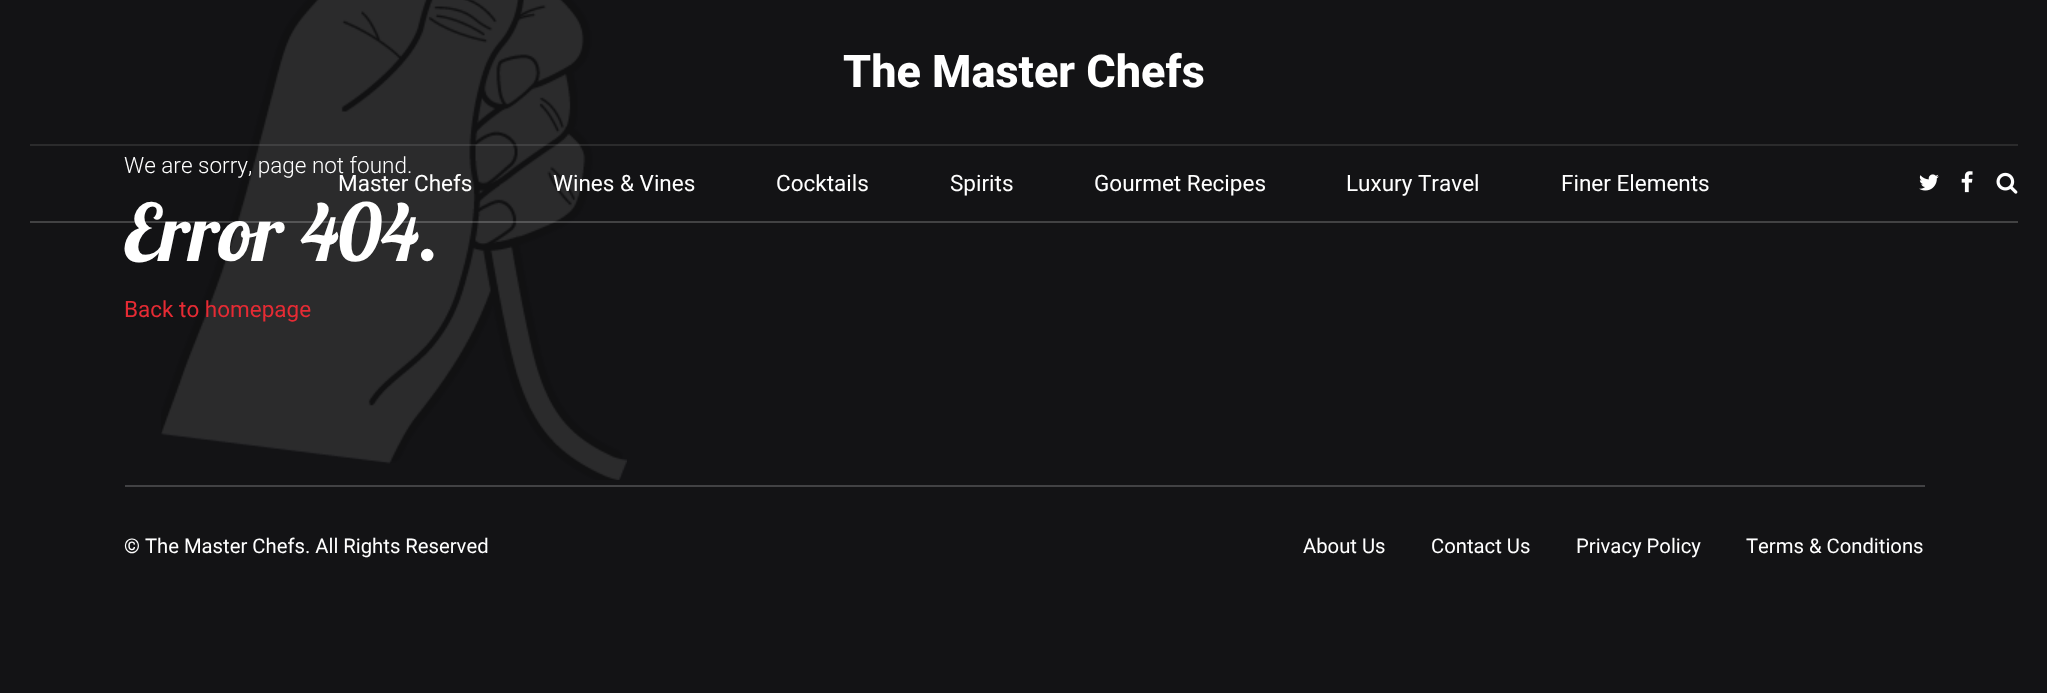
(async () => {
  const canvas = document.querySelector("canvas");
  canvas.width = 2047;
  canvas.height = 693;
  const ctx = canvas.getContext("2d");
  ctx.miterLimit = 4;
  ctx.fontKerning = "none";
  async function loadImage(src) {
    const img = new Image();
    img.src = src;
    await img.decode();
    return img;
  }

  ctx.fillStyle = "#131315";
  ctx.fillRect(0, 0, 2047, 693);
  ctx.drawImage(await loadImage("img/4.png"), 161, 0, 466, 480);
  ctx.fillStyle = "rgba(255, 255, 255, 0.1)";
  ctx.fillRect(30, 144, 1988, 2);
  ctx.drawImage(await loadImage("img/1.png"), 1919, 174, 20, 17);
  ctx.drawImage(await loadImage("img/2.png"), 1961, 171, 12, 22);
  ctx.drawImage(await loadImage("img/3.png"), 1996, 172, 22, 22);
  ctx.fillStyle = "#424244";
  ctx.fillRect(125, 485, 1800, 2);
  ctx.font = "800 45px Roboto";
  ctx.fillStyle = "#ffffff";
  ctx.fillText("The Master Chefs", 843, 87);
  ctx.font = "22.5px Roboto";
  for (const [text, x, y] of [
    ["Master Chefs", 338, 191],
    ["Wines & Vines", 553, 191],
    ["Cocktails", 776, 191],
    ["Spirits", 950, 191],
    ["Gourmet Recipes", 1094, 191],
    ["Luxury Travel", 1346, 191],
    ["Finer Elements", 1561, 191],
  ]) {
    ctx.fillText(text, x, y);
  }
  ctx.font = "300 22.5px Roboto";
  ctx.fillText("We are sorry, page not found.", 124, 173);
  ctx.font = "78.75px Lobster";
  ctx.fillText("Error 404.", 124, 261);
  ctx.fillStyle = "rgba(255, 255, 255, 0.2)";
  ctx.fillRect(30, 221, 1988, 2);
  ctx.font = "22.5px Roboto";
  ctx.fillStyle = "#e62b34";
  ctx.fillText("Back to homepage", 124, 317);
  ctx.font = "20.25px Roboto";
  ctx.fillStyle = "#ffffff";
  for (const [text, x, y] of [
    ["© The Master Chefs. All Rights Reserved", 124, 553],
    ["About Us", 1303, 553],
    ["Contact Us", 1431, 553],
    ["Privacy Policy", 1576, 553],
    ["Terms & Conditions", 1746, 553],
  ]) {
    ctx.fillText(text, x, y);
  }
})();
